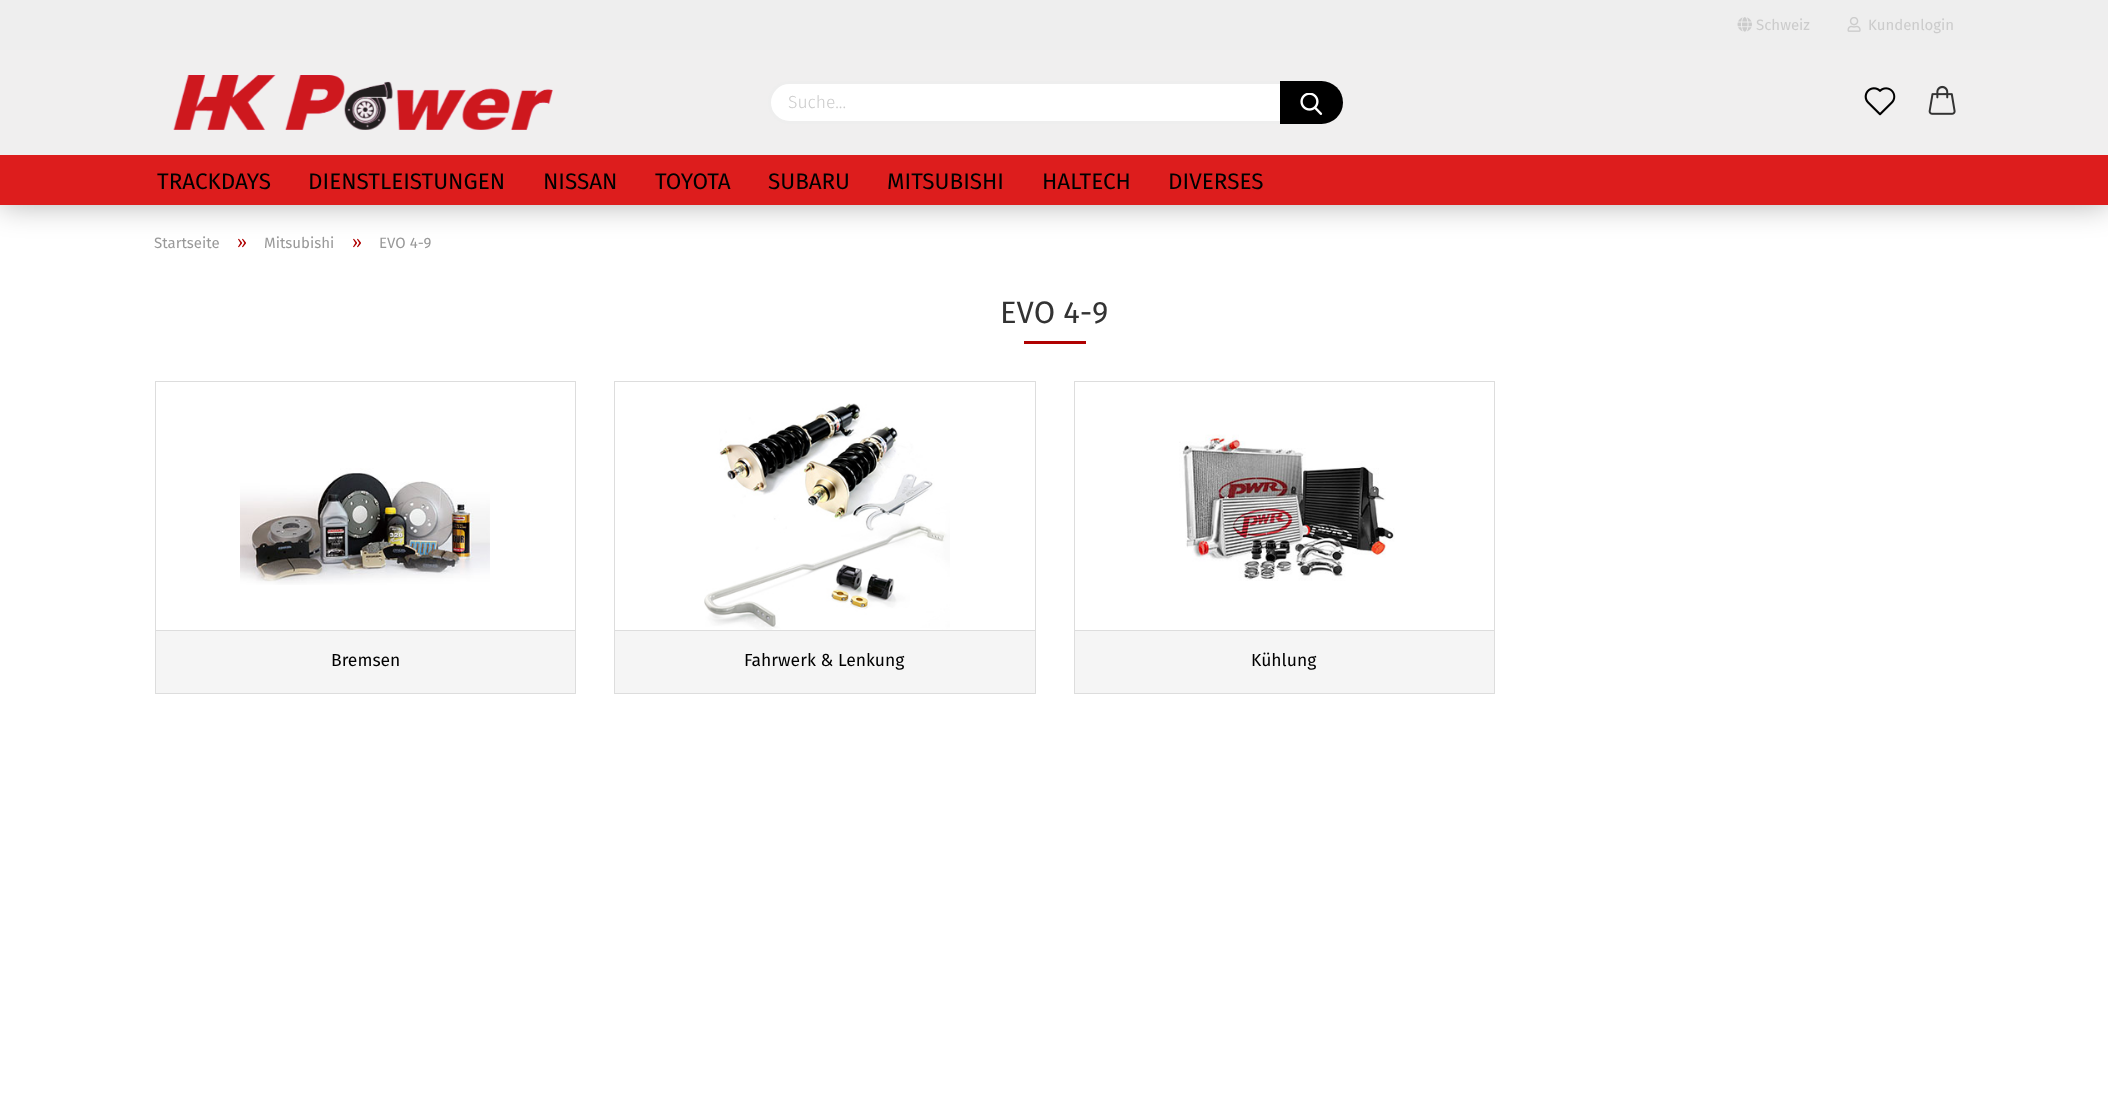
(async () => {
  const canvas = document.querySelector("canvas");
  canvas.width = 2108;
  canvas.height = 1098;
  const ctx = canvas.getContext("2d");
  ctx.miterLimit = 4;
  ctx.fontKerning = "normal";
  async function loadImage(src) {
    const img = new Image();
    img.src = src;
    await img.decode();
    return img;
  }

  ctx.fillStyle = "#ffffff";
  ctx.fillRect(0, 0, 2108, 1098);
  ctx.fillStyle = "rgba(0, 0, 0, 0.3)";
  ctx.filter = "blur(15.5px)";
  ctx.beginPath();
  ctx.rect(0, 0, 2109, 205);
  ctx.fill();
  ctx.filter = "none";
  ctx.fillStyle = "#f0efef";
  ctx.fillRect(0, 50, 2108, 105);
  ctx.fillStyle = "#eeeeee";
  ctx.fillRect(0, 0, 2108, 50);
  ctx.drawImage(await loadImage("img/1.png"), 1737, 17, 15, 15);
  ctx.drawImage(await loadImage("img/2.png"), 1847, 17, 14, 15);
  ctx.drawImage(await loadImage("img/3.png"), 173, 75, 380, 55);
  ctx.fillStyle = "#ffffff";
  ctx.beginPath();
  ctx.roundRect(769.5, 82.5, 572, 40, 20);
  ctx.fill();
  ctx.strokeStyle = "#eeeeee";
  ctx.lineWidth = 3;
  ctx.stroke();
  ctx.fillStyle = "#000000";
  ctx.beginPath();
  ctx.roundRect(1280, 81, 63, 43, [0, 21.5, 21.5, 0]);
  ctx.fill();
  ctx.drawImage(await loadImage("img/4.png"), 1300, 93, 23, 22);
  ctx.drawImage(await loadImage("img/5.png"), 1864, 87, 32, 29);
  ctx.drawImage(await loadImage("img/6.png"), 1928, 85, 28, 30);
  ctx.fillStyle = "#dd1d1d";
  ctx.fillRect(0, 155, 2108, 50);
  ctx.fillStyle = "#b00101";
  ctx.fillRect(1024, 341, 62, 3);
  ctx.strokeStyle = "#dddddd";
  ctx.lineWidth = 1;
  ctx.strokeRect(155.5, 381.5, 420, 249);
  ctx.drawImage(await loadImage("img/7.png"), 240, 468, 250, 117);
  for (const [x, y, w, h, color] of [
    [156, 631, 419, 62, "#f5f5f5"],
    [575, 631, 1, 63, "#dddddd"],
    [155, 693, 421, 1, "#dddddd"],
    [155, 631, 1, 63, "#dddddd"],
  ]) {
    ctx.fillStyle = color;
    ctx.fillRect(x, y, w, h);
  }
  ctx.strokeRect(614.5, 381.5, 421, 249);
  ctx.drawImage(await loadImage("img/8.png"), 704, 403, 246, 227);
  for (const [x, y, w, h, color] of [
    [615, 631, 420, 62, "#f5f5f5"],
    [1035, 631, 1, 63, "#dddddd"],
    [614, 693, 422, 1, "#dddddd"],
    [614, 631, 1, 63, "#dddddd"],
  ]) {
    ctx.fillStyle = color;
    ctx.fillRect(x, y, w, h);
  }
  ctx.strokeRect(1074.5, 381.5, 420, 249);
  ctx.drawImage(await loadImage("img/9.png"), 1179, 434, 216, 147);
  for (const [x, y, w, h, color] of [
    [1075, 631, 419, 62, "#f5f5f5"],
    [1494, 631, 1, 63, "#dddddd"],
    [1074, 693, 421, 1, "#dddddd"],
    [1074, 631, 1, 63, "#dddddd"],
  ]) {
    ctx.fillStyle = color;
    ctx.fillRect(x, y, w, h);
  }
  ctx.font = "15px Fira Sans";
  ctx.fillStyle = "#cccccc";
  ctx.fillText("Schweiz", 1756, 30);
  ctx.fillText("Kundenlogin", 1868, 30);
  ctx.font = "300 17.5px Fira Sans";
  ctx.fillText("Suche...", 788, 108);
  ctx.font = "22.5px Fira Sans";
  ctx.fillStyle = "#000000";
  for (const [text, x, y] of [
    ["TRACKDAYS", 157, 189],
    ["DIENSTLEISTUNGEN", 308, 189],
    ["NISSAN", 543, 189],
    ["TOYOTA", 655, 189],
    ["SUBARU", 768, 189],
    ["MITSUBISHI", 887, 189],
    ["HALTECH", 1042, 189],
    ["DIVERSES", 1168, 189],
  ]) {
    ctx.fillText(text, x, y);
  }
  ctx.font = "15px Fira Sans";
  ctx.fillStyle = "#999999";
  ctx.fillText("Startseite", 154, 248);
  ctx.font = "17.5px Fira Sans";
  ctx.fillStyle = "#b00101";
  ctx.fillText("»", 237, 248);
  ctx.font = "15px Fira Sans";
  ctx.fillStyle = "#999999";
  ctx.fillText("Mitsubishi", 264, 248);
  ctx.font = "17.5px Fira Sans";
  ctx.fillStyle = "#b00101";
  ctx.fillText("»", 352, 248);
  ctx.font = "15px Fira Sans";
  ctx.fillStyle = "#999999";
  ctx.fillText("EVO 4-9", 379, 248);
  ctx.font = "31px Fira Sans";
  ctx.fillStyle = "#333333";
  ctx.fillText("EVO 4-9", 1000, 323);
  ctx.font = "17.5px Fira Sans";
  ctx.fillStyle = "#000000";
  for (const [text, x, y] of [
    ["Bremsen", 331, 666],
    ["Fahrwerk & Lenkung", 744, 666],
    ["Kühlung", 1251, 666],
  ]) {
    ctx.fillText(text, x, y);
  }
})();
